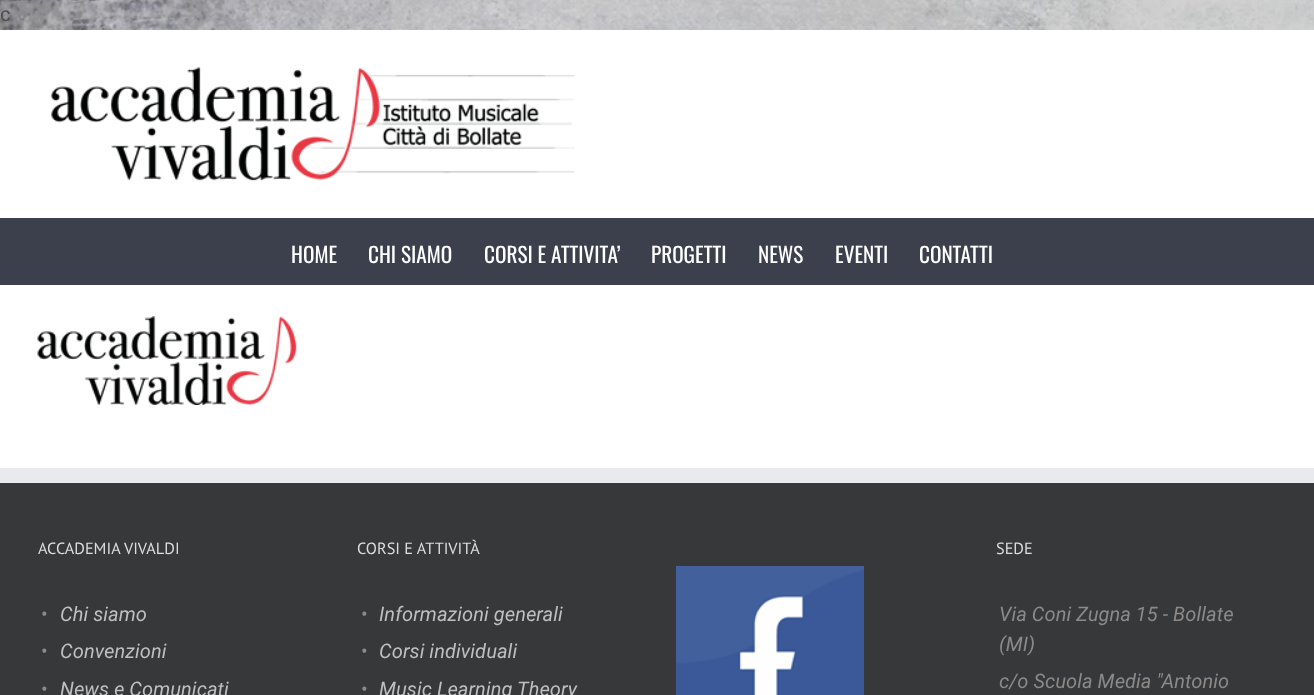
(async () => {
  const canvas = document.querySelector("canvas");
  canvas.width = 1314;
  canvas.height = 695;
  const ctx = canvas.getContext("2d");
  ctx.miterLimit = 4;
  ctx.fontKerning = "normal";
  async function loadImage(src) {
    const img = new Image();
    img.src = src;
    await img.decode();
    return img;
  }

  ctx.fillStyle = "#ffffff";
  ctx.fillRect(0, 0, 1314, 695);
  ctx.drawImage(await loadImage("img/1.png"), 0, 0, 1314, 30);
  ctx.drawImage(await loadImage("img/2.png"), 51, 67, 524, 114);
  ctx.fillStyle = "#3b404c";
  ctx.fillRect(0, 218, 1314, 67);
  ctx.drawImage(await loadImage("img/3.png"), 37, 316, 260, 89);
  ctx.fillStyle = "#363839";
  ctx.fillRect(0, 483, 1314, 212);
  ctx.fillStyle = "#e9eaee";
  ctx.fillRect(0, 468, 1314, 15);
  ctx.drawImage(await loadImage("img/4.png"), 676, 566, 188, 129);
  ctx.font = "20px Roboto";
  ctx.fillStyle = "#4f4f4f";
  ctx.fillText("c", 0, 21);
  ctx.font = "21.25px Oswald";
  ctx.fillStyle = "#ffffff";
  for (const [text, x, y] of [
    ["HOME", 291, 263],
    ["CHI SIAMO", 368, 263],
    ["CORSI E ATTIVITA’", 484, 263],
    ["PROGETTI", 651, 263],
    ["NEWS", 758, 263],
    ["EVENTI", 835, 263],
    ["CONTATTI", 919, 263],
  ]) {
    ctx.fillText(text, x, y);
  }
  ctx.font = "16.25px PT Sans";
  ctx.fillStyle = "#dddddd";
  ctx.fillText("ACCADEMIA VIVALDI", 38, 554);
  ctx.font = "20px Roboto";
  ctx.fillStyle = "#8c8989";
  ctx.fillText("•", 41, 621);
  ctx.font = "italic 20px Roboto";
  ctx.fillStyle = "#bfbfbf";
  ctx.fillText("Chi siamo", 60, 621);
  ctx.font = "20px Roboto";
  ctx.fillStyle = "#8c8989";
  ctx.fillText("•", 41, 658);
  ctx.font = "italic 20px Roboto";
  ctx.fillStyle = "#bfbfbf";
  ctx.fillText("Convenzioni", 60, 658);
  ctx.font = "20px Roboto";
  ctx.fillStyle = "#8c8989";
  ctx.fillText("•", 41, 696);
  ctx.font = "italic 20px Roboto";
  ctx.fillStyle = "#bfbfbf";
  ctx.fillText("News e Comunicati", 60, 696);
  ctx.font = "16.25px PT Sans";
  ctx.fillStyle = "#dddddd";
  ctx.fillText("CORSI E ATTIVITÀ", 357, 554);
  ctx.font = "20px Roboto";
  ctx.fillStyle = "#8c8989";
  ctx.fillText("•", 361, 621);
  ctx.font = "italic 20px Roboto";
  ctx.fillStyle = "#bfbfbf";
  ctx.fillText("Informazioni generali", 379, 621);
  ctx.font = "20px Roboto";
  ctx.fillStyle = "#8c8989";
  ctx.fillText("•", 361, 658);
  ctx.font = "italic 20px Roboto";
  ctx.fillStyle = "#bfbfbf";
  ctx.fillText("Corsi individuali", 379, 658);
  ctx.font = "20px Roboto";
  ctx.fillStyle = "#8c8989";
  ctx.fillText("•", 361, 696);
  ctx.font = "italic 20px Roboto";
  ctx.fillStyle = "#bfbfbf";
  ctx.fillText("Music Learning Theory", 379, 696);
  ctx.font = "16.25px PT Sans";
  ctx.fillStyle = "#dddddd";
  ctx.fillText("SEDE", 996, 554);
  ctx.font = "italic 20px Roboto";
  ctx.fillStyle = "#8c8989";
  for (const [text, x, y] of [
    ["Via Coni Zugna 15 - Bollate", 999, 621],
    ["(MI)", 999, 651],
    ["c/o Scuola Media \"Antonio", 999, 688],
  ]) {
    ctx.fillText(text, x, y);
  }
})();
